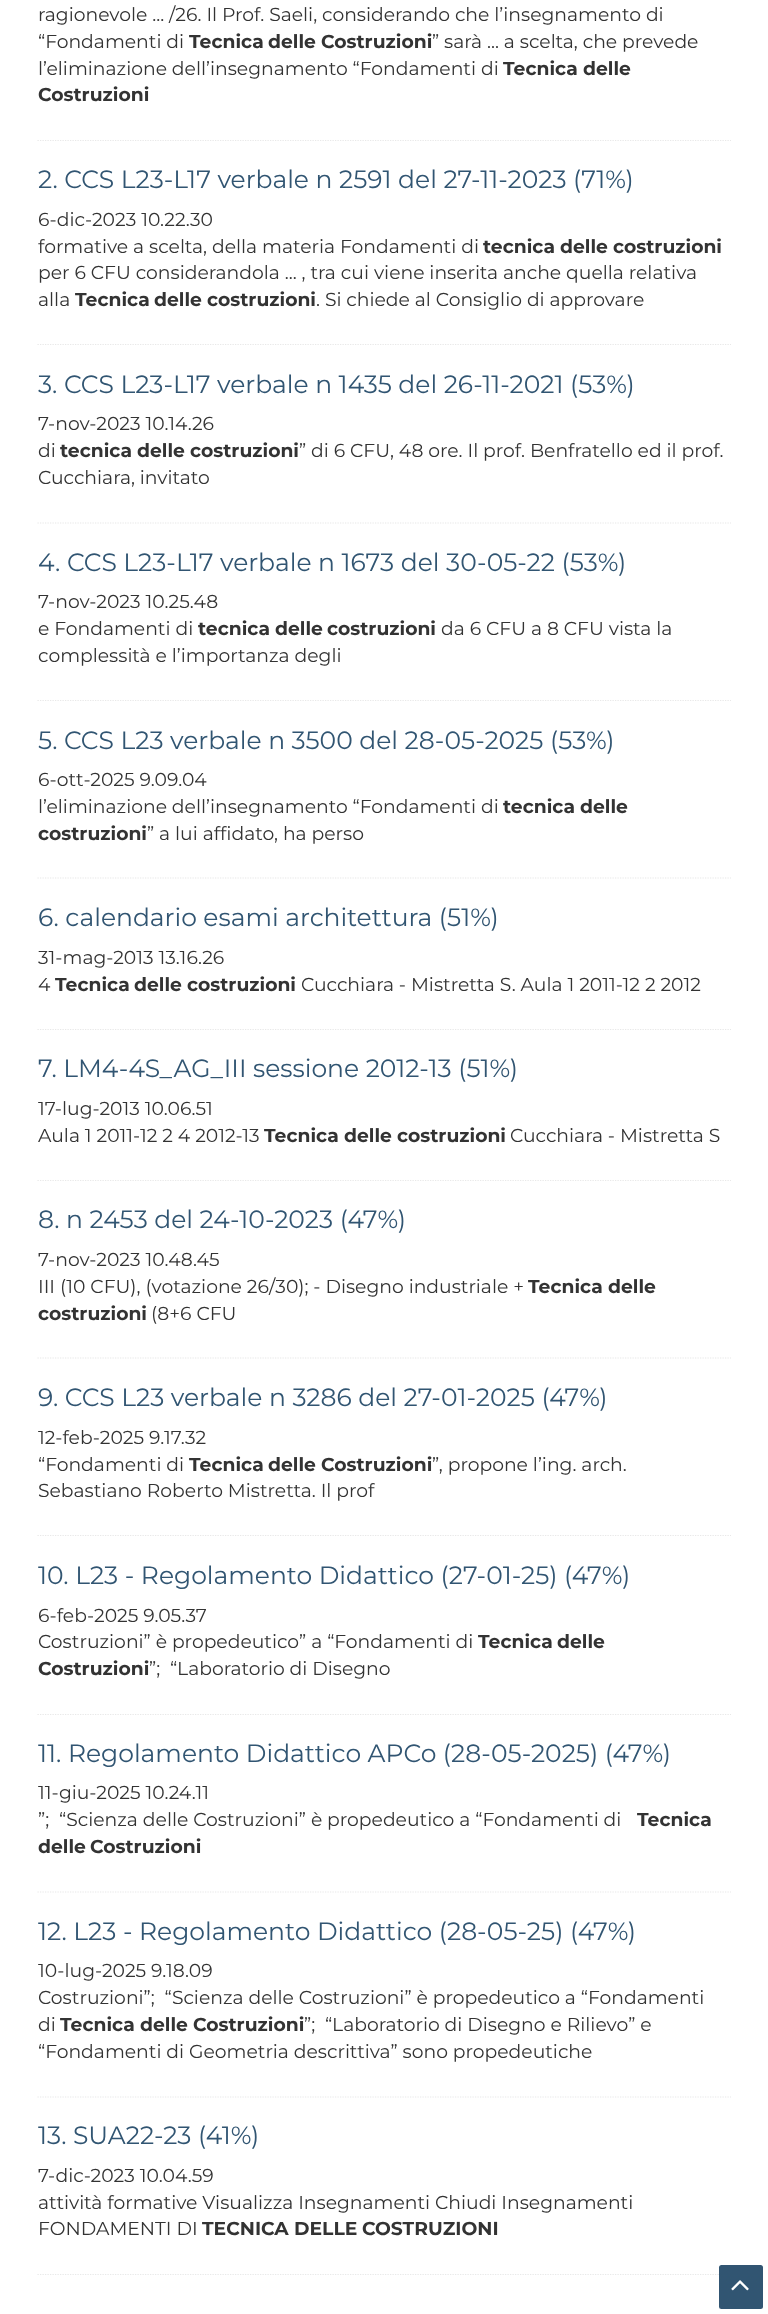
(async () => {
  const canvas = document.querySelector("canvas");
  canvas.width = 768;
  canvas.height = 2314;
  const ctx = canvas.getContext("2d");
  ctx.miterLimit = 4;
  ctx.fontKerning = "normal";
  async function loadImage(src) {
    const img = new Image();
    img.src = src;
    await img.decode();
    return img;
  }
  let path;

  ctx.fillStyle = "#ffffff";
  ctx.fillRect(0, 0, 768, 2314);
  path = new Path2D("M37.5 140.5H731");
  ctx.strokeStyle = "#e8e8e8";
  ctx.lineWidth = 1.2;
  ctx.setLineDash([1.25, 1.25]);
  ctx.stroke(path);
  path = new Path2D("M37.5 344.5H731");
  ctx.stroke(path);
  path = new Path2D("M37.5 523H731");
  ctx.stroke(path);
  path = new Path2D("M37.5 700.5H731");
  ctx.stroke(path);
  path = new Path2D("M37.5 878H731");
  ctx.stroke(path);
  path = new Path2D("M37.5 1029.5H731");
  ctx.stroke(path);
  path = new Path2D("M37.5 1180.5H731");
  ctx.stroke(path);
  path = new Path2D("M37.5 1358H731");
  ctx.stroke(path);
  path = new Path2D("M37.5 1535.5H731");
  ctx.stroke(path);
  path = new Path2D("M37.5 1714.5H731");
  ctx.stroke(path);
  path = new Path2D("M37.5 1892H731");
  ctx.stroke(path);
  path = new Path2D("M37.5 2097H731");
  ctx.stroke(path);
  path = new Path2D("M37.5 2274.5H731");
  ctx.stroke(path);
  ctx.fillStyle = "#315572";
  ctx.beginPath();
  ctx.roundRect(719, 2265, 44, 44, 2.5);
  ctx.fill();
  ctx.drawImage(await loadImage("img/1.png"), 731, 2280, 18, 11);
  ctx.font = "18.75px Montserrat";
  ctx.fillStyle = "#333333";
  ctx.fillText("ragionevole ... /26. Il Prof. Saeli, considerando che l’insegnamento di", 38, 21);
  ctx.fillText("“Fondamenti di", 38, 48);
  ctx.font = "bold 18.75px Montserrat";
  for (const [text, x, y] of [
    ["Tecnica", 189, 48],
    ["delle", 268, 48],
    ["Costruzioni", 321, 48],
  ]) {
    ctx.fillText(text, x, y);
  }
  ctx.font = "18.75px Montserrat";
  ctx.fillText("” sarà ... a scelta, che prevede", 432, 48);
  ctx.fillText("l’eliminazione dell’insegnamento “Fondamenti di", 38, 75);
  ctx.font = "bold 18.75px Montserrat";
  for (const [text, x, y] of [
    ["Tecnica", 503, 75],
    ["delle", 583, 75],
    ["Costruzioni", 38, 101],
  ]) {
    ctx.fillText(text, x, y);
  }
  ctx.font = "25px Montserrat";
  ctx.fillStyle = "#315572";
  ctx.fillText("2. CCS L23-L17 verbale n 2591 del 27-11-2023 (71%)", 38, 188);
  ctx.font = "18.75px Montserrat";
  ctx.fillStyle = "#333333";
  ctx.fillText("6-dic-2023 10.22.30", 38, 226);
  ctx.fillText("formative a scelta, della materia Fondamenti di", 38, 253);
  ctx.font = "bold 18.75px Montserrat";
  for (const [text, x, y] of [
    ["tecnica", 483, 253],
    ["delle", 560, 253],
    ["costruzioni", 613, 253],
  ]) {
    ctx.fillText(text, x, y);
  }
  ctx.font = "18.75px Montserrat";
  ctx.fillText("per 6 CFU considerandola ... , tra cui viene inserita anche quella relativa", 38, 279);
  ctx.fillText("alla", 38, 306);
  ctx.font = "bold 18.75px Montserrat";
  for (const [text, x, y] of [
    ["Tecnica", 75, 306],
    ["delle", 154, 306],
    ["costruzioni", 207, 306],
  ]) {
    ctx.fillText(text, x, y);
  }
  ctx.font = "18.75px Montserrat";
  ctx.fillText(". Si chiede al Consiglio di approvare", 316, 306);
  ctx.font = "25px Montserrat";
  ctx.fillStyle = "#315572";
  ctx.fillText("3. CCS L23-L17 verbale n 1435 del 26-11-2021 (53%)", 38, 393);
  ctx.font = "18.75px Montserrat";
  ctx.fillStyle = "#333333";
  ctx.fillText("7-nov-2023 10.14.26", 38, 430);
  ctx.fillText("di", 38, 457);
  ctx.font = "bold 18.75px Montserrat";
  for (const [text, x, y] of [
    ["tecnica", 60, 457],
    ["delle", 137, 457],
    ["costruzioni", 190, 457],
  ]) {
    ctx.fillText(text, x, y);
  }
  ctx.font = "18.75px Montserrat";
  ctx.fillText("” di 6 CFU, 48 ore. Il prof. Benfratello ed il prof.", 299, 457);
  ctx.fillText("Cucchiara, invitato", 38, 484);
  ctx.font = "25px Montserrat";
  ctx.fillStyle = "#315572";
  ctx.fillText("4. CCS L23-L17 verbale n 1673 del 30-05-22 (53%)", 38, 571);
  ctx.font = "18.75px Montserrat";
  ctx.fillStyle = "#333333";
  ctx.fillText("7-nov-2023 10.25.48", 38, 608);
  ctx.fillText("e Fondamenti di", 38, 635);
  ctx.font = "bold 18.75px Montserrat";
  for (const [text, x, y] of [
    ["tecnica", 198, 635],
    ["delle", 275, 635],
    ["costruzioni", 327, 635],
  ]) {
    ctx.fillText(text, x, y);
  }
  ctx.font = "18.75px Montserrat";
  ctx.fillText("da 6 CFU a 8 CFU vista la", 441, 635);
  ctx.fillText("complessità e l’importanza degli", 38, 662);
  ctx.font = "25px Montserrat";
  ctx.fillStyle = "#315572";
  ctx.fillText("5. CCS L23 verbale n 3500 del 28-05-2025 (53%)", 38, 749);
  ctx.font = "18.75px Montserrat";
  ctx.fillStyle = "#333333";
  ctx.fillText("6-ott-2025 9.09.04", 38, 786);
  ctx.fillText("l’eliminazione dell’insegnamento “Fondamenti di", 38, 813);
  ctx.font = "bold 18.75px Montserrat";
  for (const [text, x, y] of [
    ["tecnica", 503, 813],
    ["delle", 580, 813],
    ["costruzioni", 38, 840],
  ]) {
    ctx.fillText(text, x, y);
  }
  ctx.font = "18.75px Montserrat";
  ctx.fillText("” a lui affidato, ha perso", 147, 840);
  ctx.font = "25px Montserrat";
  ctx.fillStyle = "#315572";
  ctx.fillText("6. calendario esami architettura (51%)", 38, 926);
  ctx.font = "18.75px Montserrat";
  ctx.fillStyle = "#333333";
  ctx.fillText("31-mag-2013 13.16.26", 38, 964);
  ctx.fillText("4", 38, 991);
  ctx.font = "bold 18.75px Montserrat";
  for (const [text, x, y] of [
    ["Tecnica", 55, 991],
    ["delle", 134, 991],
    ["costruzioni", 187, 991],
  ]) {
    ctx.fillText(text, x, y);
  }
  ctx.font = "18.75px Montserrat";
  ctx.fillText("Cucchiara - Mistretta S. Aula 1 2011-12 2 2012", 301, 991);
  ctx.font = "25px Montserrat";
  ctx.fillStyle = "#315572";
  ctx.fillText("7. LM4-4S_AG_III sessione 2012-13 (51%)", 38, 1077);
  ctx.font = "18.75px Montserrat";
  ctx.fillStyle = "#333333";
  ctx.fillText("17-lug-2013 10.06.51", 38, 1115);
  ctx.fillText("Aula 1 2011-12 2 4 2012-13", 38, 1142);
  ctx.font = "bold 18.75px Montserrat";
  for (const [text, x, y] of [
    ["Tecnica", 264, 1142],
    ["delle", 344, 1142],
    ["costruzioni", 397, 1142],
  ]) {
    ctx.fillText(text, x, y);
  }
  ctx.font = "18.75px Montserrat";
  ctx.fillText("Cucchiara - Mistretta S", 510, 1142);
  ctx.font = "25px Montserrat";
  ctx.fillStyle = "#315572";
  ctx.fillText("8. n 2453 del 24-10-2023 (47%)", 38, 1228);
  ctx.font = "18.75px Montserrat";
  ctx.fillStyle = "#333333";
  ctx.fillText("7-nov-2023 10.48.45", 38, 1266);
  ctx.fillText("III (10 CFU), (votazione 26/30); - Disegno industriale +", 38, 1293);
  ctx.font = "bold 18.75px Montserrat";
  for (const [text, x, y] of [
    ["Tecnica", 528, 1293],
    ["delle", 608, 1293],
    ["costruzioni", 38, 1320],
  ]) {
    ctx.fillText(text, x, y);
  }
  ctx.font = "18.75px Montserrat";
  ctx.fillText("(8+6 CFU", 151, 1320);
  ctx.font = "25px Montserrat";
  ctx.fillStyle = "#315572";
  ctx.fillText("9. CCS L23 verbale n 3286 del 27-01-2025 (47%)", 38, 1406);
  ctx.font = "18.75px Montserrat";
  ctx.fillStyle = "#333333";
  ctx.fillText("12-feb-2025 9.17.32", 38, 1444);
  ctx.fillText("“Fondamenti di", 38, 1471);
  ctx.font = "bold 18.75px Montserrat";
  for (const [text, x, y] of [
    ["Tecnica", 189, 1471],
    ["delle", 268, 1471],
    ["Costruzioni", 321, 1471],
  ]) {
    ctx.fillText(text, x, y);
  }
  ctx.font = "18.75px Montserrat";
  ctx.fillText("”, propone l’ing. arch.", 432, 1471);
  ctx.fillText("Sebastiano Roberto Mistretta. Il prof", 38, 1497);
  ctx.font = "25px Montserrat";
  ctx.fillStyle = "#315572";
  ctx.fillText("10. L23 - Regolamento Didattico (27-01-25) (47%)", 38, 1584);
  ctx.font = "18.75px Montserrat";
  ctx.fillStyle = "#333333";
  ctx.fillText("6-feb-2025 9.05.37", 38, 1622);
  ctx.fillText("Costruzioni” è propedeutico” a “Fondamenti di", 38, 1648);
  ctx.font = "bold 18.75px Montserrat";
  for (const [text, x, y] of [
    ["Tecnica", 478, 1648],
    ["delle", 557, 1648],
    ["Costruzioni", 38, 1675],
  ]) {
    ctx.fillText(text, x, y);
  }
  ctx.font = "18.75px Montserrat";
  ctx.fillText("”;  “Laboratorio di Disegno", 149, 1675);
  ctx.font = "25px Montserrat";
  ctx.fillStyle = "#315572";
  ctx.fillText("11. Regolamento Didattico APCo (28-05-2025) (47%)", 38, 1762);
  ctx.font = "18.75px Montserrat";
  ctx.fillStyle = "#333333";
  ctx.fillText("11-giu-2025 10.24.11", 38, 1799);
  ctx.fillText("”;  “Scienza delle Costruzioni” è propedeutico a “Fondamenti di", 38, 1826);
  ctx.font = "bold 18.75px Montserrat";
  for (const [text, x, y] of [
    ["Tecnica", 637, 1826],
    ["delle", 38, 1853],
    ["Costruzioni", 90, 1853],
  ]) {
    ctx.fillText(text, x, y);
  }
  ctx.font = "25px Montserrat";
  ctx.fillStyle = "#315572";
  ctx.fillText("12. L23 - Regolamento Didattico (28-05-25) (47%)", 38, 1940);
  ctx.font = "18.75px Montserrat";
  ctx.fillStyle = "#333333";
  for (const [text, x, y] of [
    ["10-lug-2025 9.18.09", 38, 1977],
    ["Costruzioni”;  “Scienza delle Costruzioni” è propedeutico a “Fondamenti", 38, 2004],
    ["di", 38, 2031],
  ]) {
    ctx.fillText(text, x, y);
  }
  ctx.font = "bold 18.75px Montserrat";
  for (const [text, x, y] of [
    ["Tecnica", 60, 2031],
    ["delle", 140, 2031],
    ["Costruzioni", 193, 2031],
  ]) {
    ctx.fillText(text, x, y);
  }
  ctx.font = "18.75px Montserrat";
  ctx.fillText("”;  “Laboratorio di Disegno e Rilievo” e", 304, 2031);
  ctx.fillText("“Fondamenti di Geometria descrittiva” sono propedeutiche", 38, 2058);
  ctx.font = "25px Montserrat";
  ctx.fillStyle = "#315572";
  ctx.fillText("13. SUA22-23 (41%)", 38, 2144);
  ctx.font = "18.75px Montserrat";
  ctx.fillStyle = "#333333";
  for (const [text, x, y] of [
    ["7-dic-2023 10.04.59", 38, 2182],
    ["attività formative Visualizza Insegnamenti Chiudi Insegnamenti", 38, 2209],
    ["FONDAMENTI DI", 38, 2235],
  ]) {
    ctx.fillText(text, x, y);
  }
  ctx.font = "bold 18.75px Montserrat";
  for (const [text, x, y] of [
    ["TECNICA", 202, 2235],
    ["DELLE", 294, 2235],
    ["COSTRUZIONI", 362, 2235],
  ]) {
    ctx.fillText(text, x, y);
  }
})();
